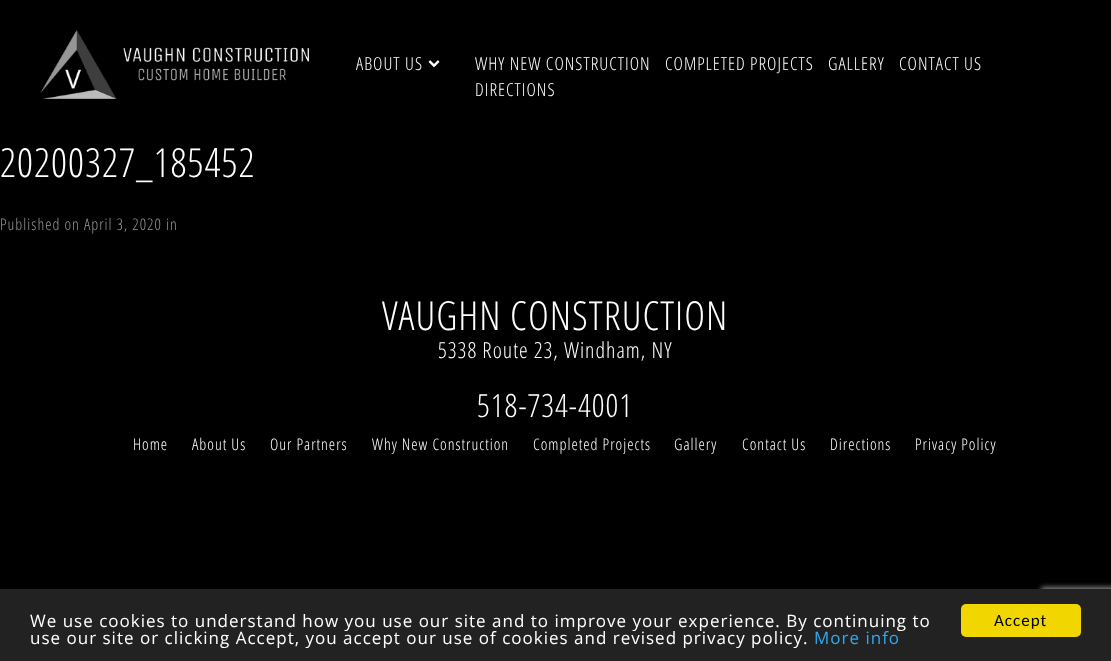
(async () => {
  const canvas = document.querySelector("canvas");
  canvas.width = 1111;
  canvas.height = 661;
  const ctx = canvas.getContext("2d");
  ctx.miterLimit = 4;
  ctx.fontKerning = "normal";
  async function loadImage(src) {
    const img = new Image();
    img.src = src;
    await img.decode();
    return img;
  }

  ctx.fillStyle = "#000000";
  ctx.fillRect(0, 0, 1111, 661);
  ctx.drawImage(await loadImage("img/1.png"), 40, 30, 269, 69);
  ctx.drawImage(await loadImage("img/2.png"), 428, 60, 12, 8);
  ctx.fillStyle = "#808080";
  ctx.filter = "blur(2.5px)";
  ctx.beginPath();
  ctx.roundRect(1041, 587, 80, 60, 2);
  ctx.fill();
  ctx.filter = "none";
  ctx.fillStyle = "#222222";
  ctx.fillRect(0, 589, 1111, 72);
  ctx.fillStyle = "#f1d600";
  ctx.beginPath();
  ctx.roundRect(961, 604, 120, 33, 5);
  ctx.fill();
  ctx.letterSpacing = "1px";
  ctx.font = "300 18px Open Sans Condensed";
  ctx.fillStyle = "#ffffff";
  for (const [text, x, y] of [
    ["ABOUT US", 356, 70],
    ["WHY NEW CONSTRUCTION", 475, 70],
    ["COMPLETED PROJECTS", 665, 70],
    ["GALLERY", 828, 70],
    ["CONTACT US", 899, 70],
    ["DIRECTIONS", 475, 96],
  ]) {
    ctx.fillText(text, x, y);
  }
  ctx.font = "300 40px Open Sans Condensed";
  ctx.fillText("20200327_185452", 0, 177);
  ctx.font = "300 16px Open Sans Condensed";
  ctx.fillStyle = "#999999";
  ctx.fillText("Published on April 3, 2020 in", 0, 230);
  ctx.font = "300 40px Open Sans Condensed";
  ctx.fillStyle = "#ffffff";
  ctx.fillText("VAUGHN CONSTRUCTION", 382, 330);
  ctx.font = "300 22px Open Sans Condensed";
  ctx.fillText("5338 Route 23, Windham, NY", 438, 358);
  ctx.font = "300 32px Open Sans Condensed";
  ctx.fillText("518-734-4001", 477, 417);
  ctx.font = "300 16px Open Sans Condensed";
  for (const [text, x, y] of [
    ["Home", 133, 450],
    ["About Us", 192, 450],
    ["Our Partners", 270, 450],
    ["Why New Construction", 372, 450],
    ["Completed Projects", 533, 450],
    ["Gallery", 674, 450],
    ["Contact Us", 742, 450],
    ["Directions", 830, 450],
    ["Privacy Policy", 915, 450],
  ]) {
    ctx.fillText(text, x, y);
  }
  ctx.font = "17px Open Sans";
  ctx.fillText("We use cookies to understand how you use our site and to improve your experience. By continuing to", 30, 627);
  ctx.fillText("use our site or clicking Accept, you accept our use of cookies and revised privacy policy.", 30, 644);
  ctx.fillStyle = "#31a8f0";
  ctx.fillText("More info", 814, 644);
  ctx.font = "17px Carlito";
  ctx.fillStyle = "#000000";
  ctx.fillText("Accept", 994, 626);
})();
